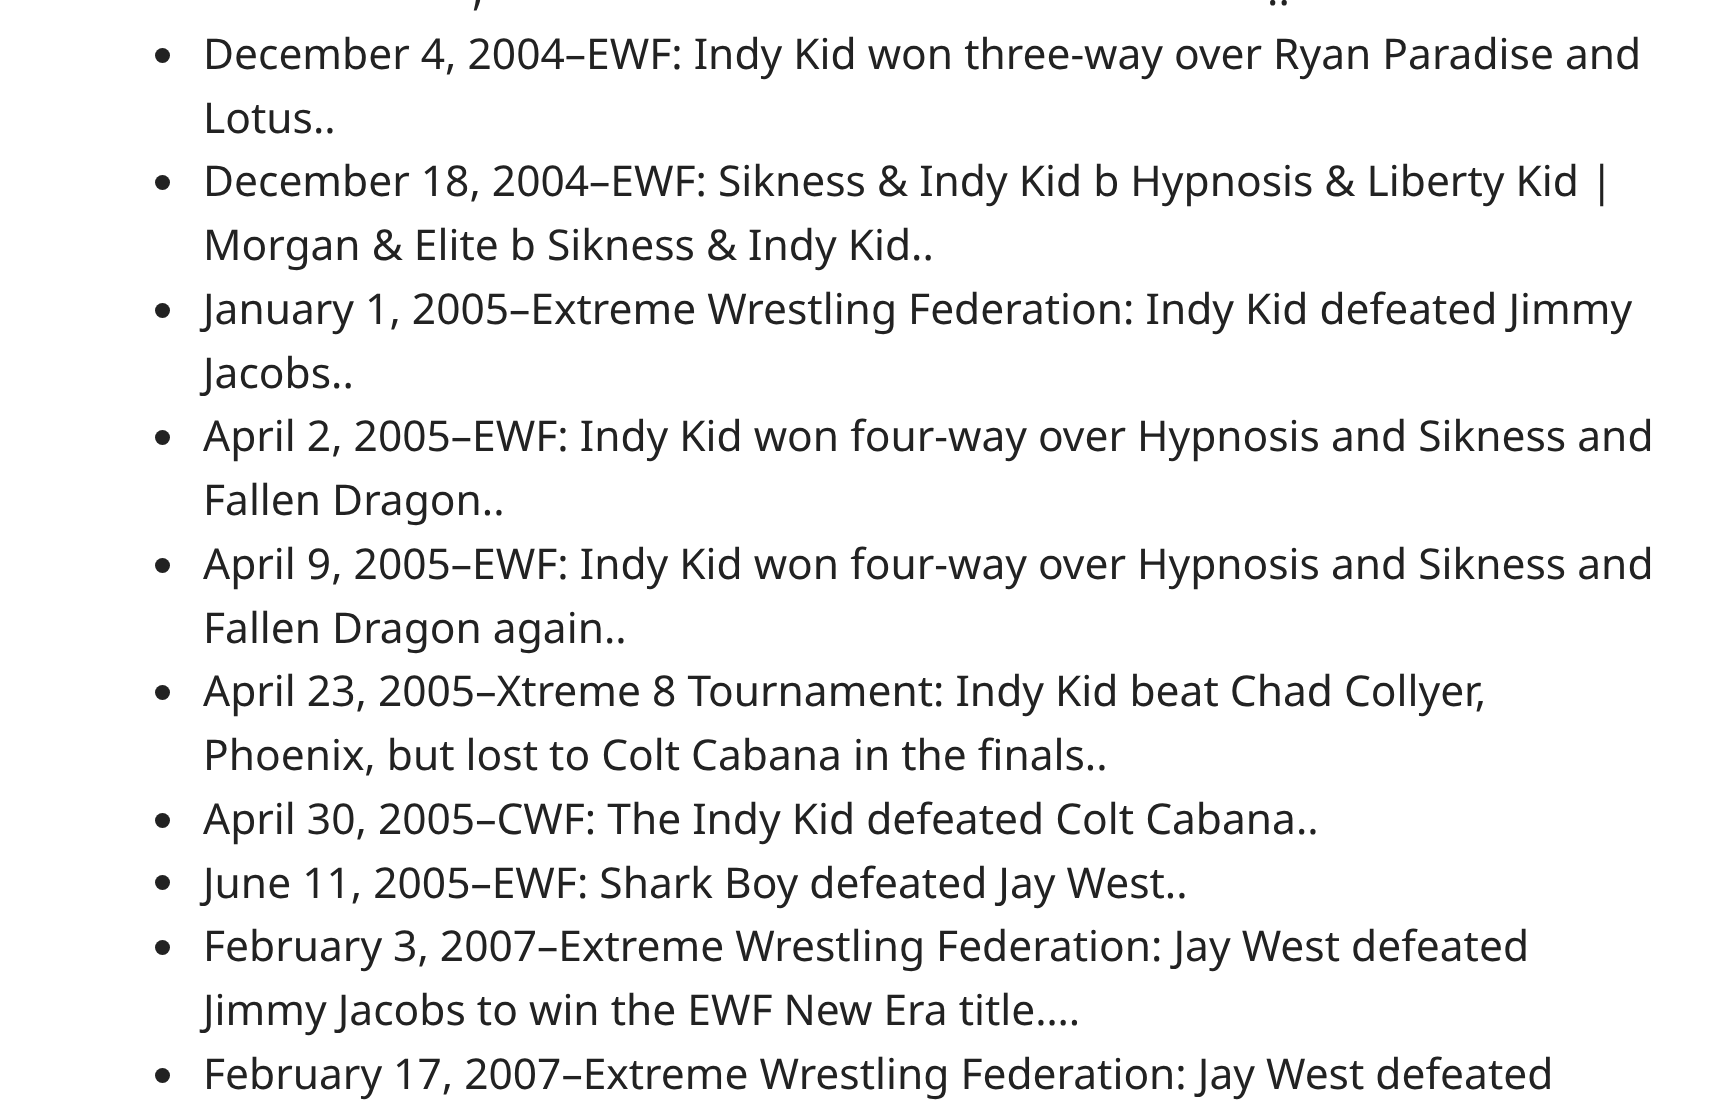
(async () => {
  const canvas = document.querySelector("canvas");
  canvas.width = 1728;
  canvas.height = 1116;
  const ctx = canvas.getContext("2d");
  ctx.miterLimit = 4;
  ctx.fontKerning = "normal";

  ctx.fillStyle = "#ffffff";
  ctx.fillRect(0, 0, 1728, 1116);
  ctx.fillStyle = "#222222";
  ctx.beginPath();
  ctx.arc(162.5, 55.5, 7.5, 0, Math.PI * 2);
  ctx.fill();
  ctx.beginPath();
  ctx.arc(162.5, 182.5, 7.5, 0, Math.PI * 2);
  ctx.fill();
  ctx.beginPath();
  ctx.arc(162.5, 310.5, 7.5, 0, Math.PI * 2);
  ctx.fill();
  ctx.beginPath();
  ctx.arc(162.5, 437.5, 7.5, 0, Math.PI * 2);
  ctx.fill();
  ctx.beginPath();
  ctx.arc(162.5, 565.5, 7.5, 0, Math.PI * 2);
  ctx.fill();
  ctx.beginPath();
  ctx.arc(162.5, 692.5, 7.5, 0, Math.PI * 2);
  ctx.fill();
  ctx.beginPath();
  ctx.arc(162.5, 820.5, 7.5, 0, Math.PI * 2);
  ctx.fill();
  ctx.beginPath();
  ctx.arc(162.5, 882.5, 7.5, 0, Math.PI * 2);
  ctx.fill();
  ctx.beginPath();
  ctx.arc(162.5, 947.5, 7.5, 0, Math.PI * 2);
  ctx.fill();
  ctx.beginPath();
  ctx.arc(162.5, 1075.5, 7.5, 0, Math.PI * 2);
  ctx.fill();
  ctx.font = "42.5px Noto Sans";
  for (const [text, x, y] of [
    [",", 472, 5],
    ["..", 1267, 5],
    ["December 4, 2004–EWF: Indy Kid won three-way over Ryan Paradise and", 203, 69],
    ["Lotus..", 203, 133],
    ["December 18, 2004–EWF: Sikness & Indy Kid b Hypnosis & Liberty Kid |", 203, 196],
    ["Morgan & Elite b Sikness & Indy Kid..", 203, 260],
    ["January 1, 2005–Extreme Wrestling Federation: Indy Kid defeated Jimmy", 203, 324],
    ["Jacobs..", 203, 388],
    ["April 2, 2005–EWF: Indy Kid won four-way over Hypnosis and Sikness and", 203, 451],
    ["Fallen Dragon..", 203, 515],
    ["April 9, 2005–EWF: Indy Kid won four-way over Hypnosis and Sikness and", 203, 579],
    ["Fallen Dragon again..", 203, 643],
    ["April 23, 2005–Xtreme 8 Tournament: Indy Kid beat Chad Collyer,", 203, 706],
    ["Phoenix, but lost to Colt Cabana in the finals..", 203, 770],
    ["April 30, 2005–CWF: The Indy Kid defeated Colt Cabana..", 203, 834],
    ["June 11, 2005–EWF: Shark Boy defeated Jay West..", 203, 898],
    ["February 3, 2007–Extreme Wrestling Federation: Jay West defeated", 203, 961],
    ["Jimmy Jacobs to win the EWF New Era title….", 203, 1025],
    ["February 17, 2007–Extreme Wrestling Federation: Jay West defeated", 203, 1089],
  ]) {
    ctx.fillText(text, x, y);
  }
})();
